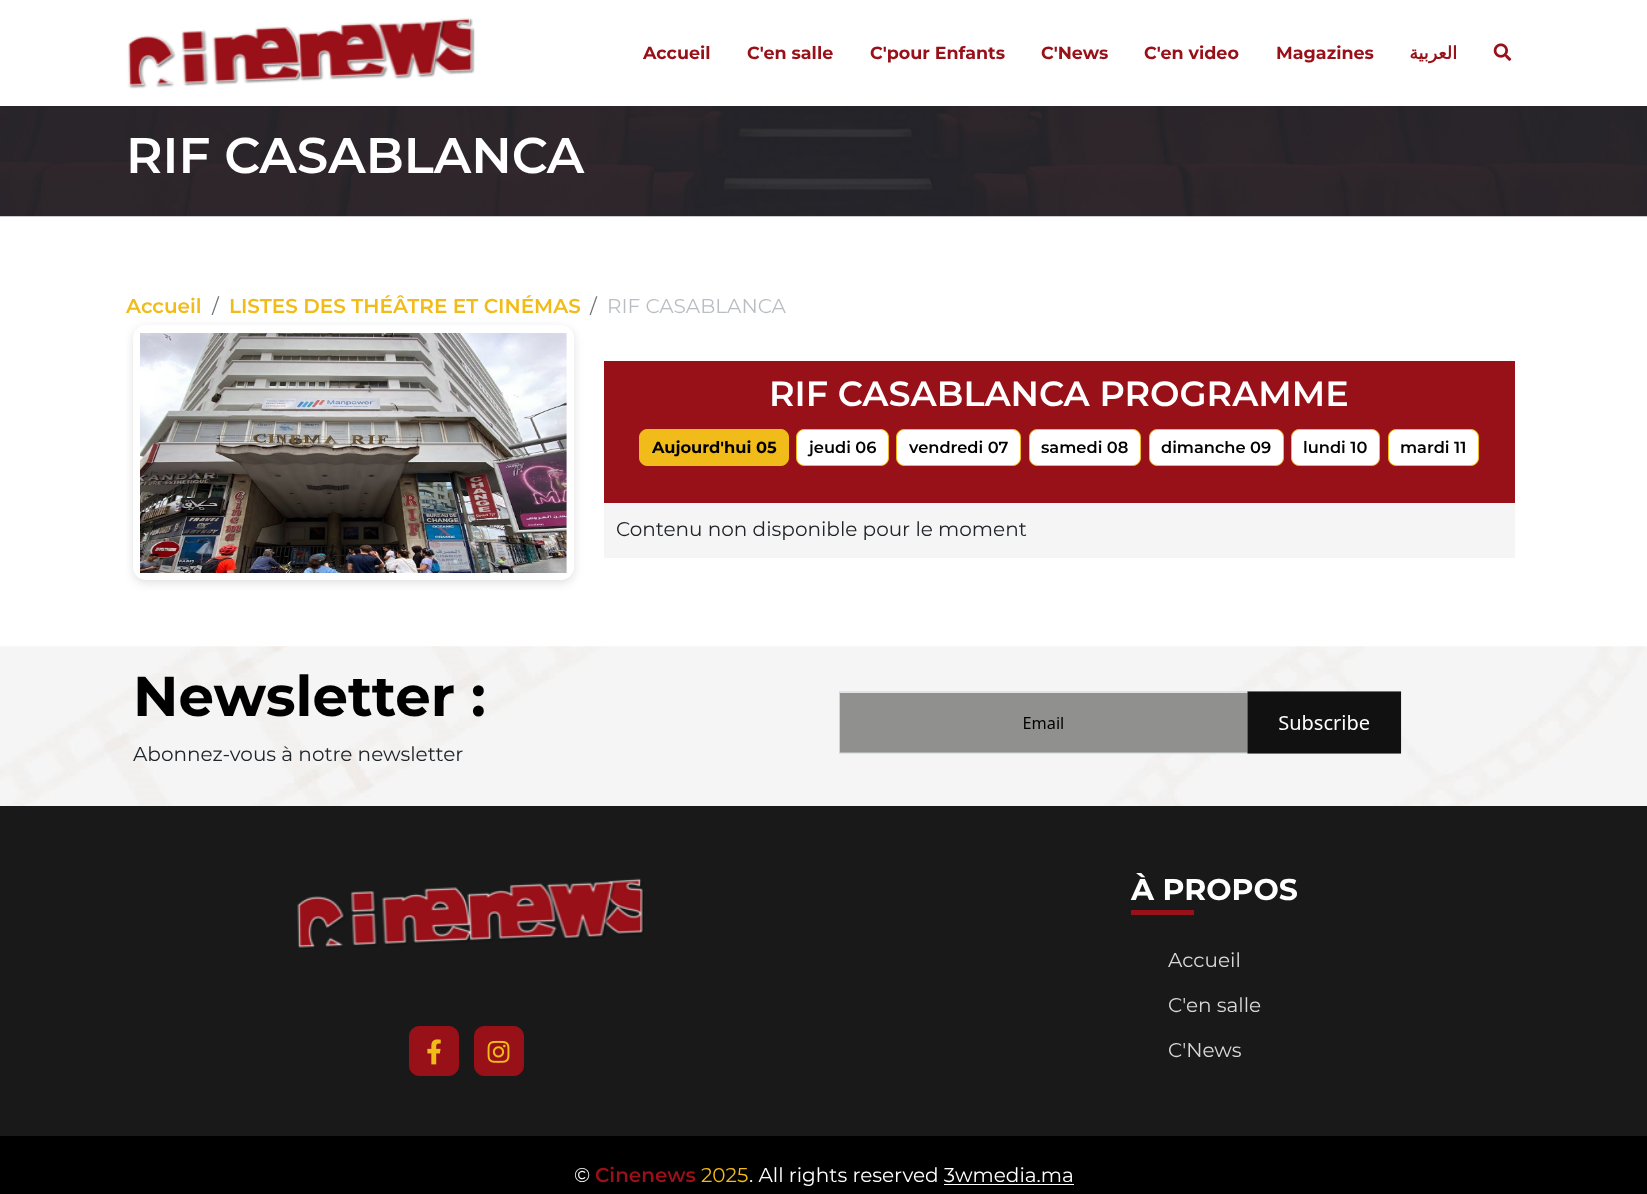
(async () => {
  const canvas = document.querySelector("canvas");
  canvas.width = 1647;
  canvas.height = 1194;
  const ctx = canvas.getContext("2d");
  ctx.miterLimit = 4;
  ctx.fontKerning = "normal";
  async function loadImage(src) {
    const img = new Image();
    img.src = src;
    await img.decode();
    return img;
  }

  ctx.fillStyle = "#ffffff";
  ctx.fillRect(0, 0, 1647, 1194);
  ctx.drawImage(await loadImage("img/1.png"), 127, 17, 348, 72);
  ctx.drawImage(await loadImage("img/2.png"), 1493, 43, 19, 18);
  ctx.drawImage(await loadImage("img/3.png"), 0, 106, 1647, 111);
  ctx.fillStyle = "rgba(99, 99, 99, 0.2)";
  ctx.filter = "blur(5px)";
  ctx.beginPath();
  ctx.roundRect(133, 328, 441, 255, 13);
  ctx.fill();
  ctx.filter = "none";
  ctx.fillStyle = "#ffffff";
  ctx.beginPath();
  ctx.roundRect(133, 325, 441, 255, 13);
  ctx.fill();
  ctx.drawImage(await loadImage("img/4.png"), 140, 333, 427, 240);
  ctx.fillStyle = "#981018";
  ctx.fillRect(604, 361, 911, 142);
  ctx.fillStyle = "#f1bb19";
  ctx.beginPath();
  ctx.roundRect(639.5, 429.5, 149, 36, 7.5);
  ctx.fill();
  ctx.strokeStyle = "#f1bb19";
  ctx.stroke();
  ctx.fillStyle = "#ffffff";
  ctx.beginPath();
  ctx.roundRect(796.5, 429.5, 92, 36, 7.5);
  ctx.fill();
  ctx.stroke();
  ctx.beginPath();
  ctx.roundRect(896.5, 429.5, 124, 36, 7.5);
  ctx.fill();
  ctx.stroke();
  ctx.beginPath();
  ctx.roundRect(1029.5, 429.5, 111, 36, 7.5);
  ctx.fill();
  ctx.stroke();
  ctx.beginPath();
  ctx.roundRect(1149.5, 429.5, 134, 36, 7.5);
  ctx.fill();
  ctx.stroke();
  ctx.beginPath();
  ctx.roundRect(1291.5, 429.5, 88, 36, 7.5);
  ctx.fill();
  ctx.stroke();
  ctx.beginPath();
  ctx.roundRect(1388.5, 429.5, 90, 36, 7.5);
  ctx.fill();
  ctx.stroke();
  ctx.fillStyle = "#f5f5f5";
  ctx.fillRect(604, 503, 911, 55);
  ctx.drawImage(await loadImage("img/5.png"), 0, 646, 1647, 160);
  ctx.drawImage(await loadImage("img/6.png"), 839, 691, 563, 63);
  ctx.fillStyle = "#191919";
  ctx.fillRect(0, 806, 1647, 329);
  ctx.drawImage(await loadImage("img/7.png"), 297, 878, 347, 71);
  ctx.fillStyle = "#981018";
  ctx.beginPath();
  ctx.roundRect(409.5, 1026.5, 49, 49, 9.5);
  ctx.fill();
  ctx.strokeStyle = "#981018";
  ctx.stroke();
  ctx.drawImage(await loadImage("img/8.png"), 427, 1039, 14, 26);
  ctx.beginPath();
  ctx.roundRect(474.5, 1026.5, 49, 49, 9.5);
  ctx.fill();
  ctx.stroke();
  ctx.drawImage(await loadImage("img/9.png"), 487, 1040, 23, 23);
  for (const [x, y, w, h, color] of [
    [1131, 910, 63, 5, "#981018"],
    [0, 1136, 1647, 58, "#000000"],
    [0, 1135, 1647, 1, "#1a1a1a"],
    [944, 1184, 130, 1, "#ffffff"],
  ]) {
    ctx.fillStyle = color;
    ctx.fillRect(x, y, w, h);
  }
  ctx.font = "bold 17.5px Montserrat";
  ctx.fillStyle = "#981018";
  for (const [text, x, y] of [
    ["Accueil", 643, 59],
    ["C'en salle", 747, 59],
    ["C'pour Enfants", 870, 59],
    ["C'News", 1041, 59],
    ["C'en video", 1144, 59],
    ["Magazines", 1276, 59],
  ]) {
    ctx.fillText(text, x, y);
  }
  ctx.direction = "rtl";
  ctx.font = "bold 17.5px DejaVu Sans";
  ctx.fillText("العربية", 1457, 59);
  ctx.direction = "ltr";
  ctx.font = "600 50px Montserrat";
  ctx.fillStyle = "#ffffff";
  ctx.fillText("RIF CASABLANCA", 126, 173);
  ctx.font = "600 20px Montserrat";
  ctx.fillStyle = "#f1bb19";
  ctx.fillText("Accueil", 126, 313);
  ctx.font = "20px Montserrat";
  ctx.fillStyle = "#6c757d";
  ctx.fillText("/", 212, 313);
  ctx.font = "600 20px Montserrat";
  ctx.fillStyle = "#f1bb19";
  ctx.fillText("LISTES DES THÉÂTRE ET CINÉMAS", 229, 313);
  ctx.font = "20px Montserrat";
  ctx.fillStyle = "#6c757d";
  ctx.fillText("/", 590, 313);
  ctx.fillStyle = "#babec2";
  ctx.fillText("RIF CASABLANCA", 607, 313);
  ctx.font = "600 35px Montserrat";
  ctx.fillStyle = "#ffffff";
  ctx.fillText("RIF CASABLANCA PROGRAMME", 769, 406);
  ctx.font = "bold 16.25px Montserrat";
  ctx.fillStyle = "#000000";
  ctx.fillText("Aujourd'hui 05", 652, 453);
  ctx.font = "600 16.25px Montserrat";
  for (const [text, x, y] of [
    ["jeudi 06", 809, 453],
    ["vendredi 07", 909, 453],
    ["samedi 08", 1041, 453],
    ["dimanche 09", 1161, 453],
    ["lundi 10", 1303, 453],
    ["mardi 11", 1400, 453],
  ]) {
    ctx.fillText(text, x, y);
  }
  ctx.font = "20px Montserrat";
  ctx.fillStyle = "#212529";
  ctx.fillText("Contenu non disponible pour le moment", 616, 536);
  ctx.font = "bold 56.25px Montserrat";
  ctx.fillStyle = "#000000";
  ctx.fillText("Newsletter :", 133, 716);
  ctx.font = "20px Montserrat";
  ctx.fillStyle = "#212529";
  ctx.fillText("Abonnez-vous à notre newsletter", 133, 761);
  ctx.font = "bold 30px Montserrat";
  ctx.fillStyle = "#ffffff";
  ctx.fillText("À PROPOS", 1131, 900);
  ctx.font = "20px Montserrat";
  ctx.fillStyle = "#d9d8d8";
  for (const [text, x, y] of [
    ["Accueil", 1168, 967],
    ["C'en salle", 1168, 1012],
    ["C'News", 1168, 1057],
  ]) {
    ctx.fillText(text, x, y);
  }
  ctx.fillStyle = "#ffffff";
  ctx.fillText("©", 574, 1182);
  ctx.font = "600 20px Montserrat";
  ctx.fillStyle = "#981018";
  ctx.fillText("Cinenews", 595, 1182);
  ctx.font = "20px Montserrat";
  ctx.fillStyle = "#f1bb19";
  ctx.fillText("2025", 701, 1182);
  ctx.fillStyle = "#ffffff";
  ctx.fillText(". All rights reserved 3wmedia.ma", 749, 1182);
})();
